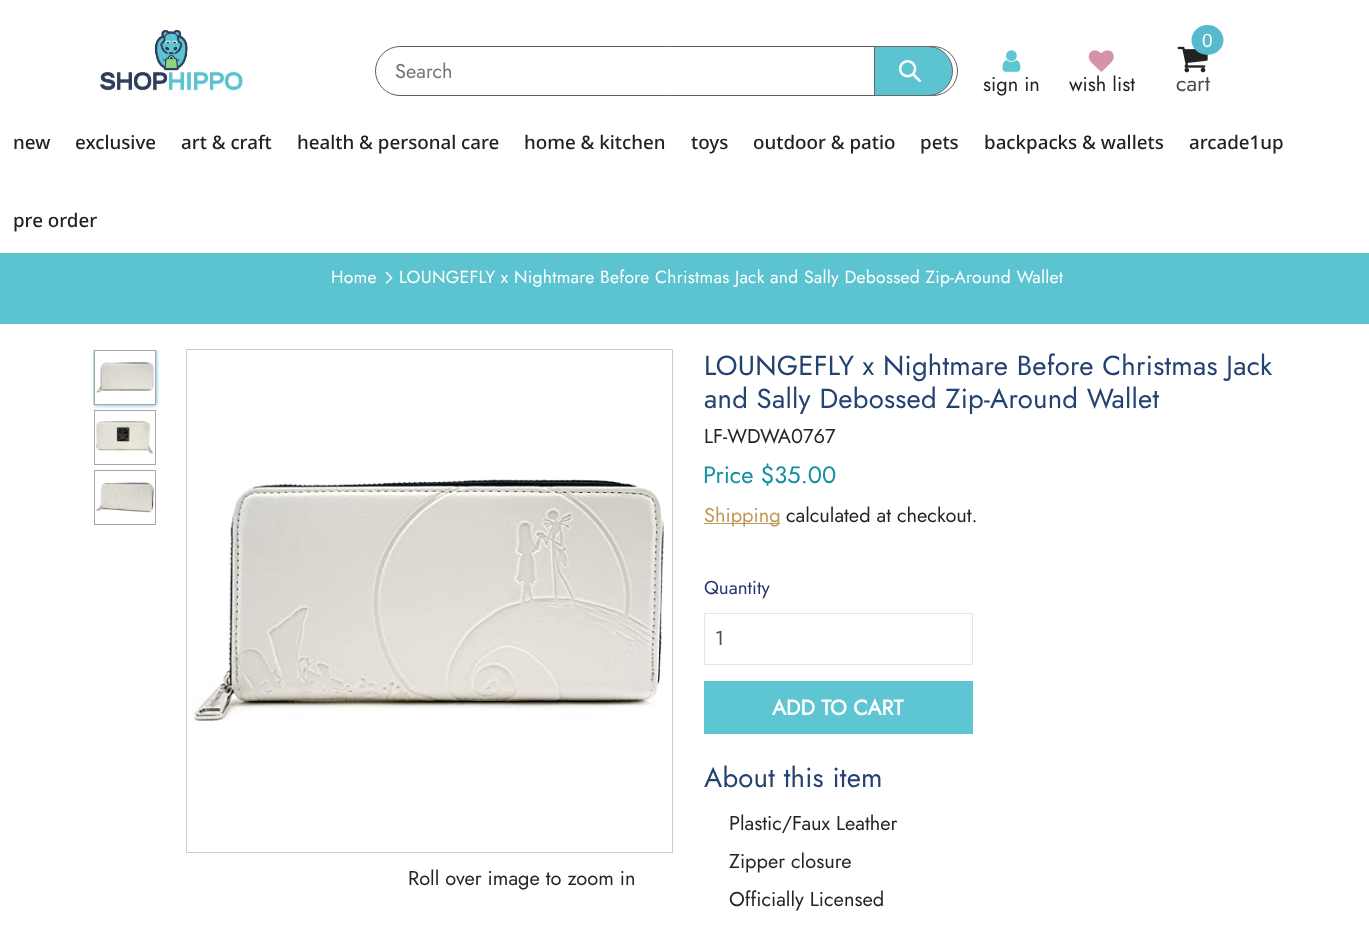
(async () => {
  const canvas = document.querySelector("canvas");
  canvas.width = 1369;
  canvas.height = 937;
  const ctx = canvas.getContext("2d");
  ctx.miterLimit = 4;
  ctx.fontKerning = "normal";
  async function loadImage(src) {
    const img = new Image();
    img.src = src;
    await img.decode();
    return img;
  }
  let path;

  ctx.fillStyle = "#ffffff";
  ctx.fillRect(0, 0, 1369, 937);
  ctx.drawImage(await loadImage("img/1.png"), 100, 30, 144, 62);
  ctx.beginPath();
  ctx.roundRect(375.5, 46.5, 582, 49, 24.5);
  ctx.strokeStyle = "#5f5d5d";
  ctx.stroke();
  ctx.fillStyle = "#5cc3d1";
  ctx.beginPath();
  ctx.roundRect(874.5, 46.5, 78, 49, [0, 24.5, 24.5, 0]);
  ctx.fill();
  ctx.strokeStyle = "#696666";
  ctx.stroke();
  ctx.drawImage(await loadImage("img/2.png"), 898, 60, 23, 23);
  ctx.drawImage(await loadImage("img/3.png"), 1002, 50, 19, 22);
  ctx.drawImage(await loadImage("img/4.png"), 1088, 50, 26, 22);
  ctx.drawImage(await loadImage("img/5.png"), 1177, 46, 31, 27);
  ctx.fillStyle = "#56b9cc";
  ctx.beginPath();
  ctx.ellipse(1207.5, 40, 16, 15, 0, 0, Math.PI * 2);
  ctx.fill();
  ctx.fillStyle = "#5cc3d1";
  ctx.fillRect(0, 253, 1369, 71);
  ctx.fillStyle = "#ffffff";
  path = new Path2D("M386.5 271.5L392.5 278L391.5 279L385.5 272.5Z");
  ctx.fill(path);
  path = new Path2D("M391.5 277L392.5 278L386.5 284L385.5 283Z");
  ctx.fill(path);
  ctx.strokeStyle = "#cccccc";
  ctx.strokeRect(186.5, 349.5, 486, 503);
  ctx.save();
  ctx.beginPath();
  ctx.rect(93, 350, 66, 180);
  ctx.clip();
  path = new Path2D("M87 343H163V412H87ZM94 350H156V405H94Z");
  ctx.clip(path, "evenodd");
  ctx.fillStyle = "#4aa9d2";
  ctx.filter = "blur(2px)";
  ctx.beginPath();
  ctx.rect(94, 350, 62, 55);
  ctx.fill();
  ctx.filter = "none";
  ctx.restore();
  ctx.strokeStyle = "#a9a5a5";
  ctx.strokeRect(94.5, 350.5, 61, 54);
  ctx.drawImage(await loadImage("img/6.png"), 96, 362, 58, 31);
  ctx.strokeRect(94.5, 410.5, 61, 54);
  ctx.drawImage(await loadImage("img/7.png"), 96, 421, 58, 33);
  ctx.strokeRect(94.5, 470.5, 61, 54);
  ctx.drawImage(await loadImage("img/8.png"), 96, 482, 58, 31);
  ctx.drawImage(await loadImage("img/9.png"), 192, 478, 473, 246);
  ctx.fillStyle = "#c29958";
  ctx.fillRect(704, 523, 76, 1);
  ctx.strokeStyle = "#e5e5e5";
  ctx.strokeRect(704.5, 613.5, 268, 51);
  ctx.fillStyle = "#5ec5d3";
  ctx.fillRect(704, 681, 269, 53);
  ctx.font = "20px Jost";
  ctx.fillStyle = "#757575";
  ctx.fillText("Search", 395, 78);
  ctx.fillStyle = "#222222";
  ctx.fillText("sign in", 983, 91);
  ctx.fillText("wish list", 1069, 91);
  ctx.font = "19px Liberation Sans";
  ctx.fillStyle = "#ffffff";
  ctx.fillText("0", 1202, 47);
  ctx.font = "22px Jost";
  ctx.fillStyle = "#4a4a4a";
  ctx.fillText("cart", 1176, 91);
  ctx.font = "500 18.75px Noto Sans";
  ctx.fillStyle = "#222222";
  for (const [text, x, y] of [
    ["new", 13, 149],
    ["exclusive", 75, 149],
    ["art & craft", 181, 149],
    ["health & personal care", 297, 149],
    ["home & kitchen", 524, 149],
    ["toys", 691, 149],
    ["outdoor & patio", 753, 149],
    ["pets", 920, 149],
    ["backpacks & wallets", 984, 149],
    ["arcade1up", 1189, 149],
    ["pre order", 13, 227],
  ]) {
    ctx.fillText(text, x, y);
  }
  ctx.letterSpacing = "0.25px";
  ctx.font = "17.5px Jost";
  ctx.fillStyle = "#ffffff";
  ctx.fillText("Home", 331, 283);
  ctx.fillText("LOUNGEFLY x Nightmare Before Christmas Jack and Sally Debossed Zip-Around Wallet", 399, 283);
  ctx.letterSpacing = "0px";
  ctx.font = "20px Jost";
  ctx.fillStyle = "#212529";
  ctx.fillText("Roll over image to zoom in", 408, 885);
  ctx.letterSpacing = "0.25px";
  ctx.font = "27.5px Jost";
  ctx.fillStyle = "#244271";
  ctx.fillText("LOUNGEFLY x Nightmare Before Christmas Jack", 704, 375);
  ctx.fillText("and Sally Debossed Zip-Around Wallet", 704, 408);
  ctx.letterSpacing = "0px";
  ctx.font = "20px Jost";
  ctx.fillStyle = "#212529";
  ctx.fillText("LF-WDWA0767", 704, 443);
  ctx.font = "23.75px Jost";
  ctx.fillStyle = "#138ea0";
  ctx.fillText("Price $35.00", 703, 483);
  ctx.font = "20px Jost";
  ctx.fillStyle = "#c29958";
  ctx.fillText("Shipping", 704, 522);
  ctx.fillStyle = "#212529";
  ctx.fillText("calculated at checkout.", 786, 522);
  ctx.font = "18.75px Jost";
  ctx.fillStyle = "#263478";
  ctx.fillText("Quantity", 704, 594);
  ctx.font = "20px Jost";
  ctx.fillStyle = "#495057";
  ctx.fillText("1", 715, 645);
  ctx.font = "bold 21.25px Jost";
  ctx.fillStyle = "#ffffff";
  ctx.fillText("ADD TO CART", 772, 715);
  ctx.letterSpacing = "0.25px";
  ctx.font = "27.5px Jost";
  ctx.fillStyle = "#244271";
  ctx.fillText("About this item", 704, 787);
  ctx.letterSpacing = "0px";
  ctx.font = "20px Jost";
  ctx.fillStyle = "#212529";
  for (const [text, x, y] of [
    ["Plastic/Faux Leather", 729, 830],
    ["Zipper closure", 729, 868],
    ["Officially Licensed", 729, 906],
  ]) {
    ctx.fillText(text, x, y);
  }
})();
